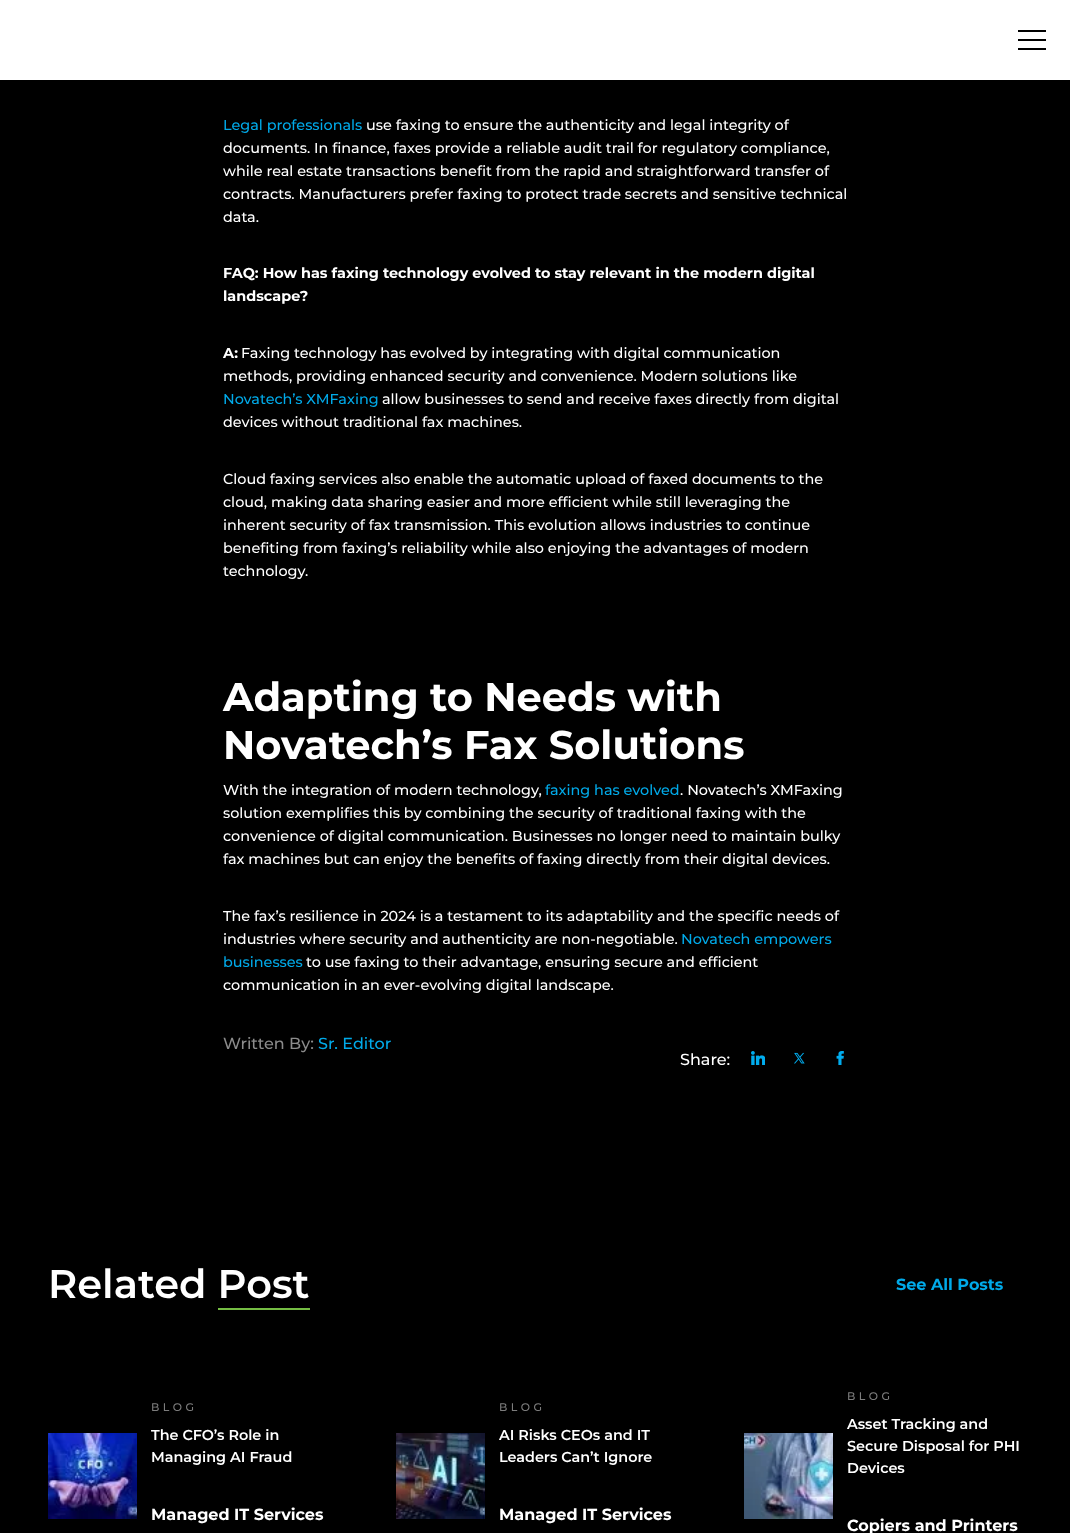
(async () => {
  const canvas = document.querySelector("canvas");
  canvas.width = 1070;
  canvas.height = 1533;
  const ctx = canvas.getContext("2d");
  ctx.miterLimit = 4;
  ctx.fontKerning = "normal";
  async function loadImage(src) {
    const img = new Image();
    img.src = src;
    await img.decode();
    return img;
  }

  ctx.fillStyle = "#000000";
  ctx.fillRect(0, 0, 1070, 1533);
  for (const [x, y, w, h, color] of [
    [0, 0, 1070, 80, "#ffffff"],
    [1018, 39, 28, 2, "#000000"],
    [1018, 30, 28, 2, "#000000"],
    [1018, 48, 28, 2, "#000000"],
  ]) {
    ctx.fillStyle = color;
    ctx.fillRect(x, y, w, h);
  }
  ctx.drawImage(await loadImage("img/1.png"), 751, 1051, 14, 14);
  ctx.drawImage(await loadImage("img/2.png"), 794, 1052, 11, 12);
  ctx.drawImage(await loadImage("img/3.png"), 836, 1051, 8, 14);
  ctx.fillStyle = "#75bd44";
  ctx.fillRect(218, 1308, 92, 2);
  ctx.drawImage(await loadImage("img/4.png"), 48, 1433, 89, 86);
  ctx.drawImage(await loadImage("img/5.png"), 396, 1433, 89, 86);
  ctx.drawImage(await loadImage("img/6.png"), 744, 1433, 89, 86);
  ctx.font = "500 14.4px Montserrat";
  ctx.fillStyle = "#00aae9";
  ctx.fillText("Legal professionals", 223, 130);
  ctx.fillStyle = "#ffffff";
  for (const [text, x, y] of [
    ["use faxing to ensure the authenticity and legal integrity of", 366, 130],
    ["documents. In finance, faxes provide a reliable audit trail for regulatory compliance,", 223, 153],
    ["while real estate transactions benefit from the rapid and straightforward transfer of", 223, 176],
    ["contracts. Manufacturers prefer faxing to protect trade secrets and sensitive technical", 223, 199],
    ["data.", 223, 222],
  ]) {
    ctx.fillText(text, x, y);
  }
  ctx.font = "bold 14.4px Montserrat";
  for (const [text, x, y] of [
    ["FAQ: How has faxing technology evolved to stay relevant in the modern digital", 223, 278],
    ["landscape?", 223, 301],
    ["A:", 223, 358],
  ]) {
    ctx.fillText(text, x, y);
  }
  ctx.font = "500 14.4px Montserrat";
  ctx.fillText("Faxing technology has evolved by integrating with digital communication", 241, 358);
  ctx.fillText("methods, providing enhanced security and convenience. Modern solutions like", 223, 381);
  ctx.fillStyle = "#00aae9";
  ctx.fillText("Novatech’s XMFaxing", 223, 404);
  ctx.fillStyle = "#ffffff";
  for (const [text, x, y] of [
    ["allow businesses to send and receive faxes directly from digital", 382, 404],
    ["devices without traditional fax machines.", 223, 427],
    ["Cloud faxing services also enable the automatic upload of faxed documents to the", 223, 484],
    ["cloud, making data sharing easier and more efficient while still leveraging the", 223, 507],
    ["inherent security of fax transmission. This evolution allows industries to continue", 223, 530],
    ["benefiting from faxing’s reliability while also enjoying the advantages of modern", 223, 553],
    ["technology.", 223, 576],
  ]) {
    ctx.fillText(text, x, y);
  }
  ctx.font = "bold 40px Montserrat";
  ctx.fillText("Adapting to Needs with", 223, 711);
  ctx.fillText("Novatech’s Fax Solutions", 223, 759);
  ctx.font = "500 14.4px Montserrat";
  ctx.fillText("With the integration of modern technology,", 223, 795);
  ctx.fillStyle = "#00aae9";
  ctx.fillText("faxing has evolved", 545, 795);
  ctx.fillStyle = "#ffffff";
  for (const [text, x, y] of [
    [". Novatech’s XMFaxing", 680, 795],
    ["solution exemplifies this by combining the security of traditional faxing with the", 223, 818],
    ["convenience of digital communication. Businesses no longer need to maintain bulky", 223, 841],
    ["fax machines but can enjoy the benefits of faxing directly from their digital devices.", 223, 864],
    ["The fax’s resilience in 2024 is a testament to its adaptability and the specific needs of", 223, 921],
    ["industries where security and authenticity are non-negotiable.", 223, 944],
  ]) {
    ctx.fillText(text, x, y);
  }
  ctx.fillStyle = "#00aae9";
  ctx.fillText("Novatech empowers", 681, 944);
  ctx.fillText("businesses", 223, 967);
  ctx.fillStyle = "#ffffff";
  ctx.fillText("to use faxing to their advantage, ensuring secure and efficient", 306, 967);
  ctx.fillText("communication in an ever-evolving digital landscape.", 223, 990);
  ctx.font = "500 16px Montserrat";
  ctx.fillStyle = "#8b8b8b";
  ctx.fillText("Written By:", 223, 1049);
  ctx.fillStyle = "#00aae9";
  ctx.fillText("Sr. Editor", 318, 1049);
  ctx.fillStyle = "#ffffff";
  ctx.fillText("Share:", 680, 1065);
  ctx.font = "600 40px Montserrat";
  ctx.fillText("Related Post", 48, 1298);
  ctx.font = "bold 16px Montserrat";
  ctx.fillStyle = "#00aae9";
  ctx.fillText("See All Posts", 896, 1290);
  ctx.letterSpacing = "3.5px";
  ctx.font = "500 11px Montserrat";
  ctx.fillStyle = "#7d7d7d";
  ctx.fillText("BLOG", 151, 1411);
  ctx.letterSpacing = "0px";
  ctx.font = "600 14.4px Montserrat";
  ctx.fillStyle = "#ffffff";
  ctx.fillText("The CFO’s Role in", 151, 1440);
  ctx.fillText("Managing AI Fraud", 151, 1462);
  ctx.font = "bold 16px Montserrat";
  ctx.fillText("Managed IT Services", 151, 1520);
  ctx.letterSpacing = "3.5px";
  ctx.font = "500 11px Montserrat";
  ctx.fillStyle = "#7d7d7d";
  ctx.fillText("BLOG", 499, 1411);
  ctx.letterSpacing = "0px";
  ctx.font = "600 14.4px Montserrat";
  ctx.fillStyle = "#ffffff";
  ctx.fillText("AI Risks CEOs and IT", 499, 1440);
  ctx.fillText("Leaders Can’t Ignore", 499, 1462);
  ctx.font = "bold 16px Montserrat";
  ctx.fillText("Managed IT Services", 499, 1520);
  ctx.letterSpacing = "3.5px";
  ctx.font = "500 11px Montserrat";
  ctx.fillStyle = "#7d7d7d";
  ctx.fillText("BLOG", 847, 1400);
  ctx.letterSpacing = "0px";
  ctx.font = "600 14.4px Montserrat";
  ctx.fillStyle = "#ffffff";
  for (const [text, x, y] of [
    ["Asset Tracking and", 847, 1429],
    ["Secure Disposal for PHI", 847, 1451],
    ["Devices", 847, 1473],
  ]) {
    ctx.fillText(text, x, y);
  }
  ctx.font = "bold 16px Montserrat";
  ctx.fillText("Copiers and Printers", 847, 1531);
})();
